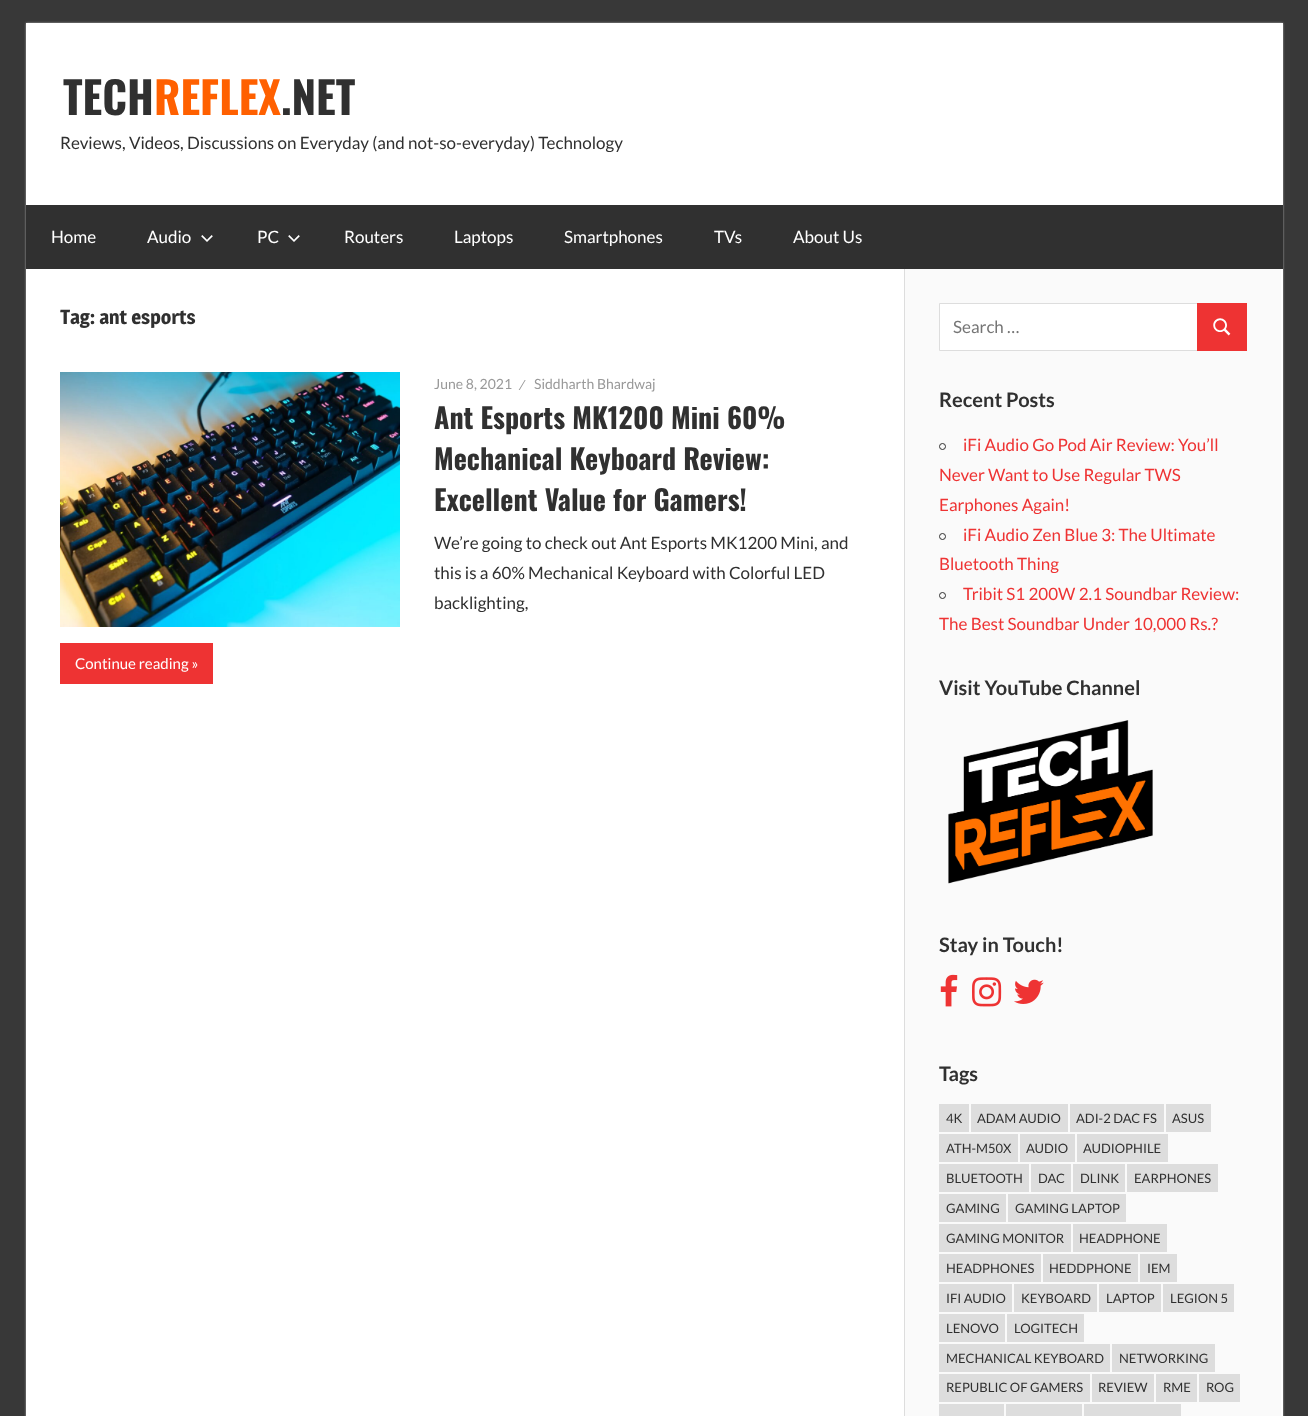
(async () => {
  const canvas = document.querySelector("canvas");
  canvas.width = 1308;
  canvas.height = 1416;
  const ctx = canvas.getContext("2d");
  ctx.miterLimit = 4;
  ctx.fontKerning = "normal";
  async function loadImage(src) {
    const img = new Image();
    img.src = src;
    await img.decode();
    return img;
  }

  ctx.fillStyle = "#383838";
  ctx.fillRect(0, 0, 1308, 1416);
  ctx.fillStyle = "#aaaaaa";
  ctx.filter = "blur(1px)";
  ctx.beginPath();
  ctx.rect(26, 23, 1257, 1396);
  ctx.fill();
  ctx.filter = "none";
  ctx.fillStyle = "#ffffff";
  ctx.fillRect(26, 23, 1257, 1393);
  ctx.fillStyle = "#303030";
  ctx.fillRect(26, 205, 1257, 64);
  ctx.drawImage(await loadImage("img/1.png"), 201, 235, 12, 7);
  ctx.drawImage(await loadImage("img/1.png"), 288, 235, 12, 7);
  ctx.drawImage(await loadImage("img/2.png"), 60, 372, 340, 255);
  for (const [x, y, w, h, color] of [
    [60, 643, 153, 41, "#ee3333"],
    [905, 269, 376, 1147, "#fafafa"],
    [904, 269, 1, 1147, "#dddddd"],
  ]) {
    ctx.fillStyle = color;
    ctx.fillRect(x, y, w, h);
  }
  ctx.fillStyle = "#ffffff";
  ctx.beginPath();
  ctx.rect(939.5, 303.5, 258, 47);
  ctx.fill();
  ctx.strokeStyle = "#dddddd";
  ctx.stroke();
  ctx.fillStyle = "#ee3333";
  ctx.fillRect(1197, 303, 50, 48);
  ctx.drawImage(await loadImage("img/3.png"), 1213, 318, 18, 18);
  ctx.beginPath();
  ctx.arc(942.5, 446.5, 3, 0, Math.PI * 2);
  ctx.strokeStyle = "#303030";
  ctx.stroke();
  ctx.beginPath();
  ctx.arc(942.5, 536.5, 3, 0, Math.PI * 2);
  ctx.stroke();
  ctx.beginPath();
  ctx.arc(942.5, 595.5, 3, 0, Math.PI * 2);
  ctx.stroke();
  ctx.drawImage(await loadImage("img/4.png"), 948, 720, 205, 164);
  ctx.drawImage(await loadImage("img/5.png"), 940, 974, 18, 33);
  ctx.drawImage(await loadImage("img/6.png"), 972, 977, 30, 30);
  ctx.drawImage(await loadImage("img/7.png"), 1014, 979, 30, 25);
  for (const [x, y, w, h, color] of [
    [939, 1104, 30, 28, "#dddddd"],
    [971, 1104, 97, 28, "#dddddd"],
    [1070, 1104, 94, 28, "#dddddd"],
    [1166, 1104, 45, 28, "#dddddd"],
    [939, 1134, 79, 28, "#dddddd"],
    [1020, 1134, 55, 28, "#dddddd"],
    [1077, 1134, 91, 28, "#dddddd"],
    [939, 1164, 90, 28, "#dddddd"],
    [1031, 1164, 40, 28, "#dddddd"],
    [1073, 1164, 52, 28, "#dddddd"],
    [1127, 1164, 91, 28, "#dddddd"],
    [939, 1194, 67, 28, "#dddddd"],
    [1008, 1194, 118, 28, "#dddddd"],
    [939, 1224, 132, 28, "#dddddd"],
    [1073, 1224, 94, 28, "#dddddd"],
    [939, 1254, 102, 28, "#dddddd"],
    [1043, 1254, 95, 28, "#dddddd"],
    [1140, 1254, 37, 28, "#dddddd"],
    [939, 1284, 73, 28, "#dddddd"],
    [1014, 1284, 83, 28, "#dddddd"],
    [1099, 1284, 62, 28, "#dddddd"],
    [1163, 1284, 71, 28, "#dddddd"],
    [939, 1314, 66, 28, "#dddddd"],
    [1007, 1314, 77, 28, "#dddddd"],
    [939, 1344, 171, 28, "#dddddd"],
    [1112, 1344, 103, 28, "#dddddd"],
    [939, 1374, 151, 28, "#dddddd"],
    [1092, 1374, 62, 28, "#dddddd"],
    [1156, 1374, 41, 28, "#dddddd"],
    [1199, 1374, 41, 28, "#dddddd"],
    [939, 1404, 65, 12, "#dddddd"],
    [1006, 1404, 76, 12, "#dddddd"],
    [1084, 1404, 97, 12, "#dddddd"],
  ]) {
    ctx.fillStyle = color;
    ctx.fillRect(x, y, w, h);
  }
  ctx.font = "bold 44px Oswald";
  ctx.fillStyle = "#303030";
  ctx.fillText("TECH", 63, 115);
  ctx.fillStyle = "#ff6000";
  ctx.fillText("REFLEX", 154, 115);
  ctx.fillStyle = "#303030";
  ctx.fillText(".NET", 281, 115);
  ctx.font = "17px Lato";
  ctx.fillText("Reviews, Videos, Discussions on Everyday (and not-so-everyday) Technology", 60, 149);
  ctx.fillStyle = "#ffffff";
  for (const [text, x, y] of [
    ["Home", 51, 243],
    ["Audio", 147, 243],
    ["PC", 257, 243],
    ["Routers", 344, 243],
    ["Laptops", 454, 243],
    ["Smartphones", 564, 243],
    ["TVs", 714, 243],
    ["About Us", 793, 243],
  ]) {
    ctx.fillText(text, x, y);
  }
  ctx.font = "bold 20px Magra";
  ctx.fillStyle = "#303030";
  ctx.fillText("Tag: ant esports", 60, 324);
  ctx.font = "14px Lato";
  ctx.fillStyle = "#999999";
  for (const [text, x, y] of [
    ["June 8, 2021", 434, 389],
    ["⁄", 520, 390],
    ["Siddharth Bhardwaj", 534, 389],
  ]) {
    ctx.fillText(text, x, y);
  }
  ctx.font = "bold 28px Oswald";
  ctx.fillStyle = "#303030";
  for (const [text, x, y] of [
    ["Ant Esports MK1200 Mini 60%", 434, 429],
    ["Mechanical Keyboard Review:", 434, 470],
    ["Excellent Value for Gamers!", 434, 511],
  ]) {
    ctx.fillText(text, x, y);
  }
  ctx.font = "17px Lato";
  for (const [text, x, y] of [
    ["We’re going to check out Ant Esports MK1200 Mini, and", 434, 549],
    ["this is a 60% Mechanical Keyboard with Colorful LED", 434, 579],
    ["backlighting,", 434, 609],
  ]) {
    ctx.fillText(text, x, y);
  }
  ctx.font = "15px Lato";
  ctx.fillStyle = "#ffffff";
  ctx.fillText("Continue reading »", 75, 669);
  ctx.font = "17px Lato";
  ctx.fillStyle = "#757575";
  ctx.fillText("Search …", 953, 333);
  ctx.font = "bold 20px Lato";
  ctx.fillStyle = "#303030";
  ctx.fillText("Recent Posts", 939, 407);
  ctx.font = "17px Lato";
  ctx.fillStyle = "#ee3333";
  for (const [text, x, y] of [
    ["iFi Audio Go Pod Air Review: You’ll", 963, 451],
    ["Never Want to Use Regular TWS", 939, 481],
    ["Earphones Again!", 939, 511],
    ["iFi Audio Zen Blue 3: The Ultimate", 963, 541],
    ["Bluetooth Thing", 939, 570],
    ["Tribit S1 200W 2.1 Soundbar Review:", 963, 600],
    ["The Best Soundbar Under 10,000 Rs.?", 939, 630],
  ]) {
    ctx.fillText(text, x, y);
  }
  ctx.font = "bold 20px Lato";
  ctx.fillStyle = "#303030";
  for (const [text, x, y] of [
    ["Visit YouTube Channel", 939, 695],
    ["Stay in Touch!", 939, 952],
    ["Tags", 939, 1081],
  ]) {
    ctx.fillText(text, x, y);
  }
  ctx.font = "13px Lato";
  for (const [text, x, y] of [
    ["4K", 946, 1123],
    ["ADAM AUDIO", 977, 1123],
    ["ADI-2 DAC FS", 1076, 1123],
    ["ASUS", 1172, 1123],
    ["ATH-M50X", 946, 1153],
    ["AUDIO", 1026, 1153],
    ["AUDIOPHILE", 1083, 1153],
    ["BLUETOOTH", 946, 1183],
    ["DAC", 1038, 1183],
    ["DLINK", 1080, 1183],
    ["EARPHONES", 1134, 1183],
    ["GAMING", 946, 1213],
    ["GAMING LAPTOP", 1015, 1213],
    ["GAMING MONITOR", 946, 1243],
    ["HEADPHONE", 1079, 1243],
    ["HEADPHONES", 946, 1273],
    ["HEDDPHONE", 1049, 1273],
    ["IEM", 1147, 1273],
    ["IFI AUDIO", 946, 1303],
    ["KEYBOARD", 1021, 1303],
    ["LAPTOP", 1106, 1303],
    ["LEGION 5", 1170, 1303],
    ["LENOVO", 946, 1333],
    ["LOGITECH", 1014, 1333],
    ["MECHANICAL KEYBOARD", 946, 1363],
    ["NETWORKING", 1119, 1363],
    ["REPUBLIC OF GAMERS", 946, 1392],
    ["REVIEW", 1098, 1392],
    ["RME", 1163, 1392],
    ["ROG", 1206, 1392],
  ]) {
    ctx.fillText(text, x, y);
  }
})();
